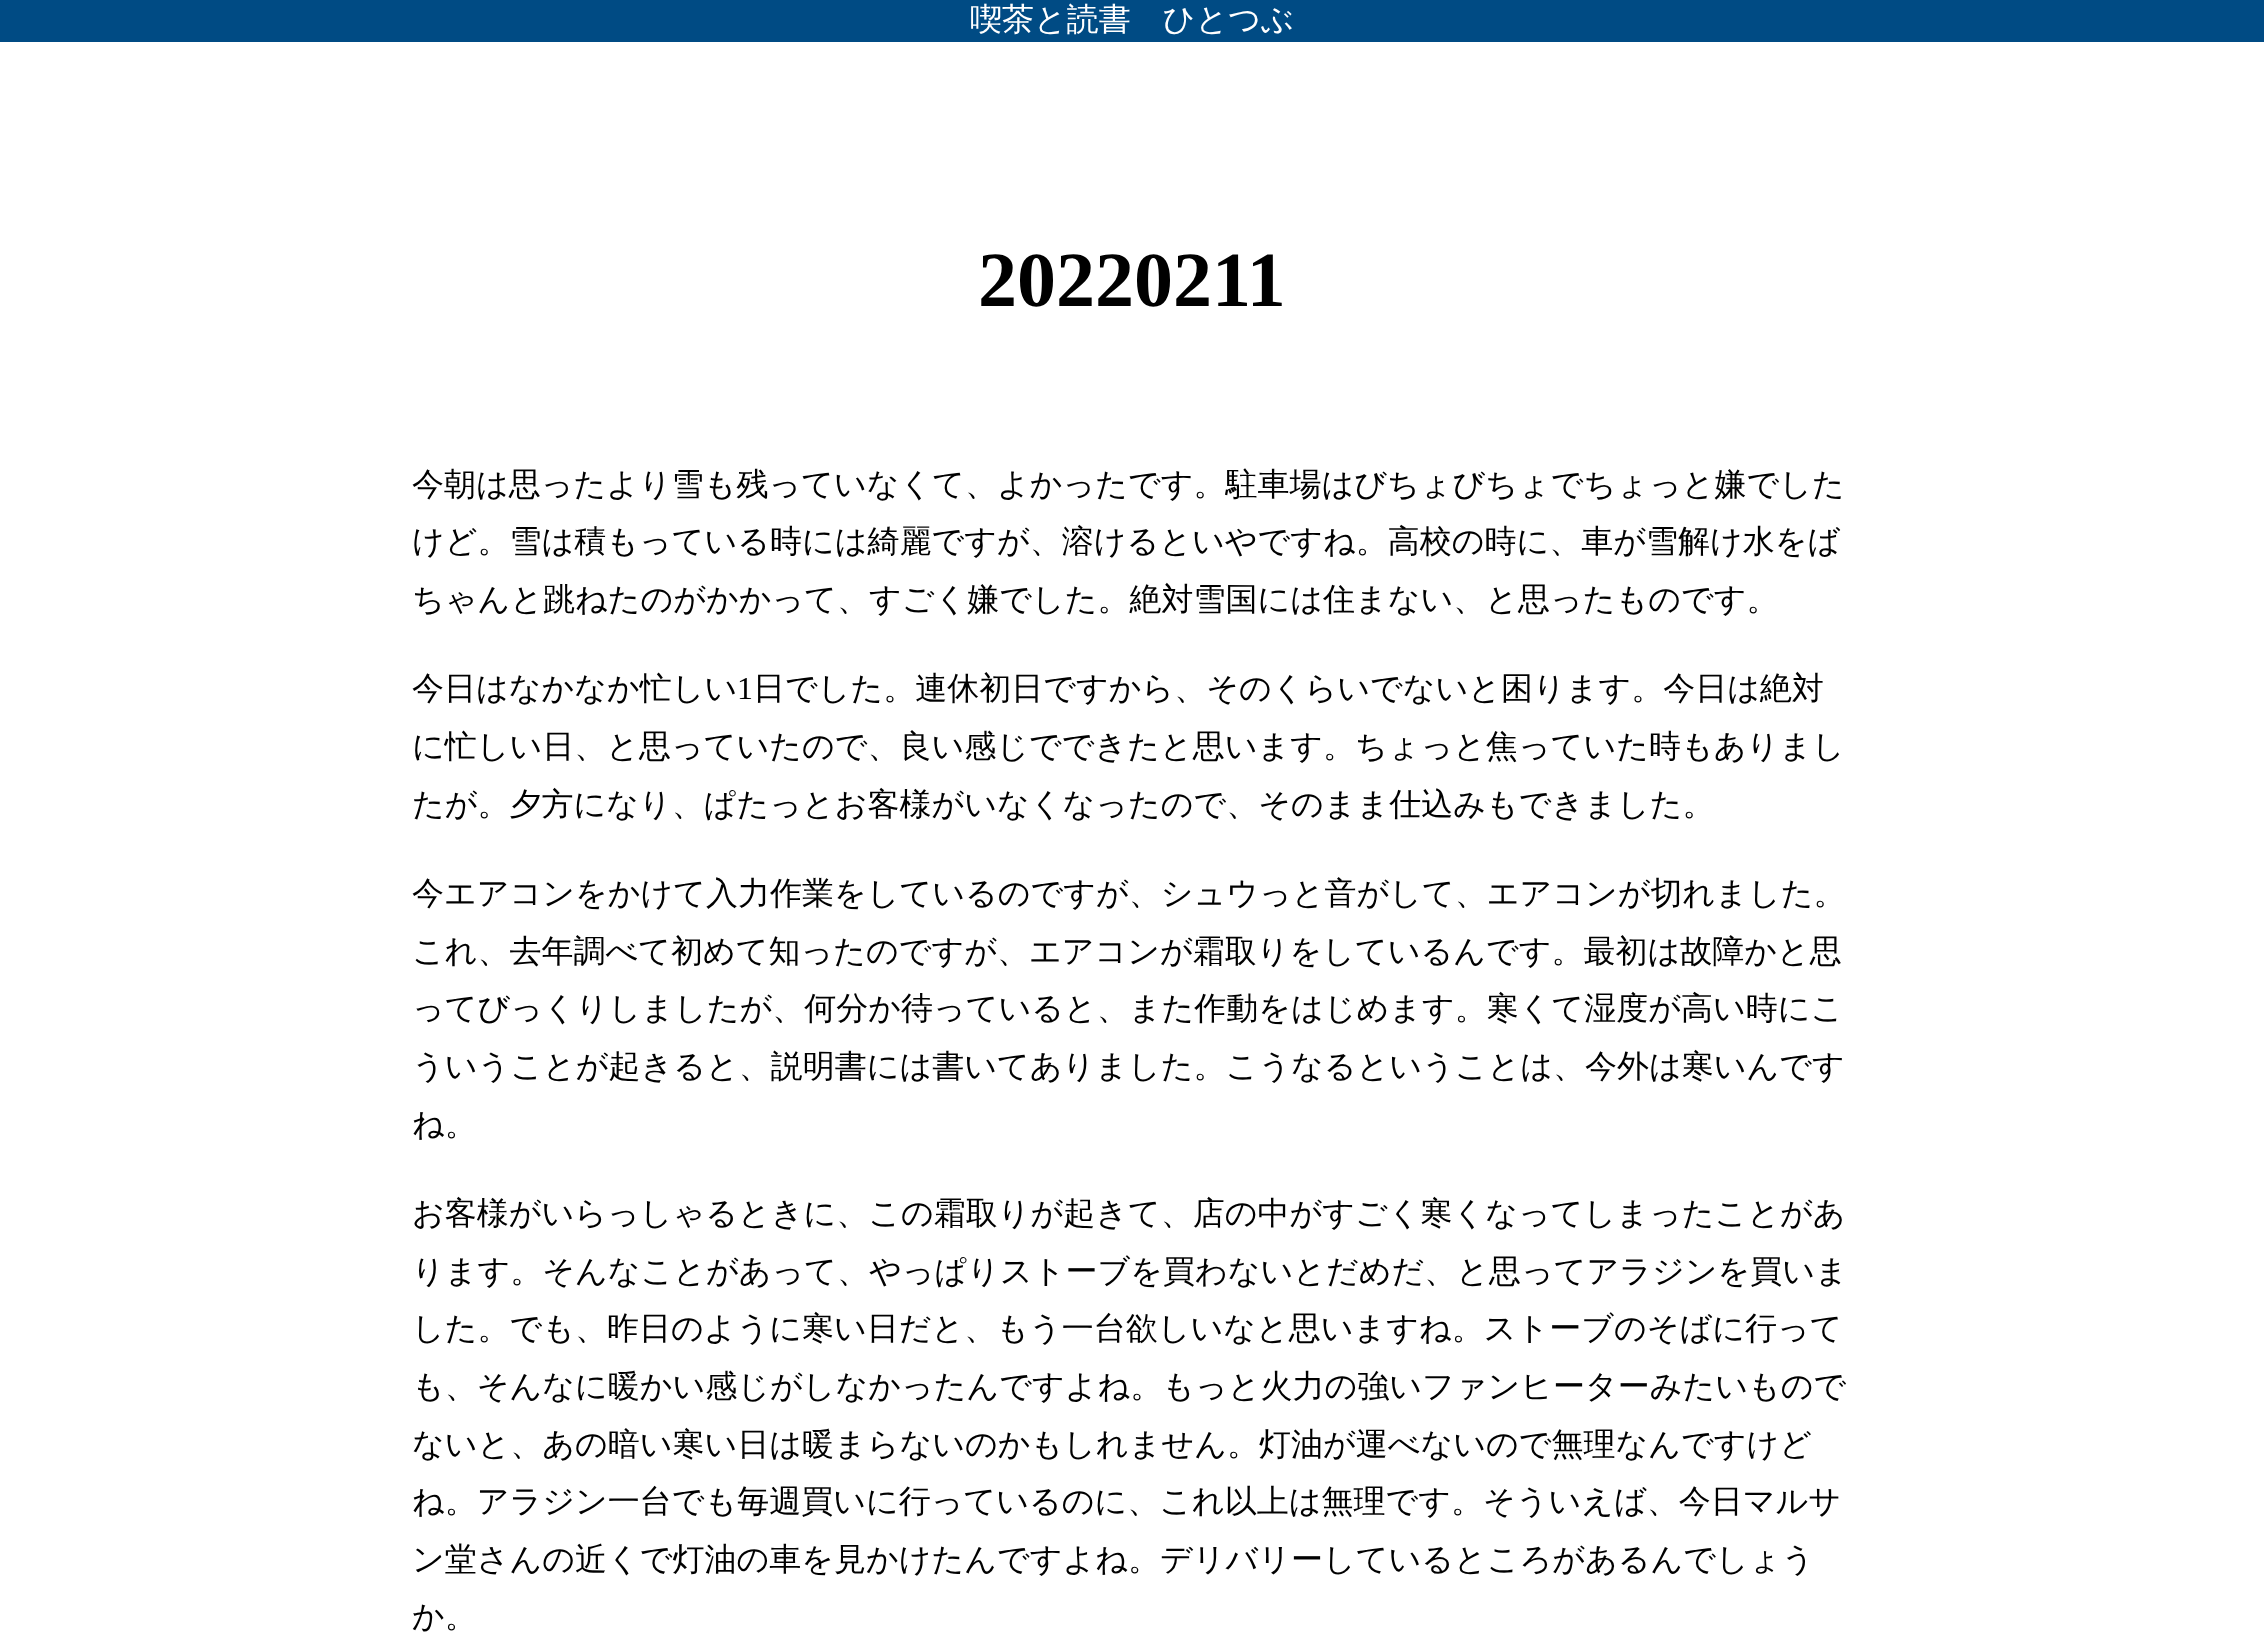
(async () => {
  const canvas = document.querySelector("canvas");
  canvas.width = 2264;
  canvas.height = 1645;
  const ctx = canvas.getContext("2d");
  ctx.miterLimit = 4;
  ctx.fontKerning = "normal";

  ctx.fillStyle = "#ffffff";
  ctx.fillRect(0, 0, 2264, 1645);
  ctx.fillStyle = "#004b84";
  ctx.fillRect(0, 0, 2264, 42);
  ctx.font = "500 32px WenQuanYi Zen Hei";
  ctx.fillStyle = "#ffffff";
  ctx.fillText("喫茶と読書　ひとつぶ", 970, 30);
  ctx.font = "bold 78px Liberation Serif";
  ctx.fillStyle = "#000000";
  ctx.fillText("20220211", 978, 306);
  ctx.font = "500 32px WenQuanYi Zen Hei";
  for (const [text, x, y] of [
    ["今朝は思ったより雪も残っていなくて、よかったです。駐車場はびちょびちょでちょっと嫌でした", 412, 495],
    ["けど。雪は積もっている時には綺麗ですが、溶けるといやですね。高校の時に、車が雪解け水をば", 412, 552],
    ["ちゃんと跳ねたのがかかって、すごく嫌でした。絶対雪国には住まない、と思ったものです。", 412, 610],
    ["今日はなかなか忙しい", 412, 699],
  ]) {
    ctx.fillText(text, x, y);
  }
  ctx.font = "32px Liberation Serif";
  ctx.fillText("1", 737, 699);
  ctx.font = "500 32px WenQuanYi Zen Hei";
  for (const [text, x, y] of [
    ["日でした。連休初日ですから、そのくらいでないと困ります。今日は絶対", 753, 699],
    ["に忙しい日、と思っていたので、良い感じでできたと思います。ちょっと焦っていた時もありまし", 412, 757],
    ["たが。夕方になり、ぱたっとお客様がいなくなったので、そのまま仕込みもできました。", 412, 815],
    ["今エアコンをかけて入力作業をしているのですが、シュウっと音がして、エアコンが切れました。", 412, 904],
    ["これ、去年調べて初めて知ったのですが、エアコンが霜取りをしているんです。最初は故障かと思", 412, 962],
    ["ってびっくりしましたが、何分か待っていると、また作動をはじめます。寒くて湿度が高い時にこ", 412, 1019],
    ["ういうことが起きると、説明書には書いてありました。こうなるということは、今外は寒いんです", 412, 1077],
    ["ね。", 412, 1135],
    ["お客様がいらっしゃるときに、この霜取りが起きて、店の中がすごく寒くなってしまったことがあ", 412, 1224],
    ["ります。そんなことがあって、やっぱりストーブを買わないとだめだ、と思ってアラジンを買いま", 412, 1282],
    ["した。でも、昨日のように寒い日だと、もう一台欲しいなと思いますね。ストーブのそばに行って", 412, 1339],
    ["も、そんなに暖かい感じがしなかったんですよね。もっと火力の強いファンヒーターみたいもので", 412, 1397],
    ["ないと、あの暗い寒い日は暖まらないのかもしれません。灯油が運べないので無理なんですけど", 412, 1455],
    ["ね。アラジン一台でも毎週買いに行っているのに、これ以上は無理です。そういえば、今日マルサ", 412, 1512],
    ["ン堂さんの近くで灯油の車を見かけたんですよね。デリバリーしているところがあるんでしょう", 412, 1570],
    ["か。", 412, 1627],
  ]) {
    ctx.fillText(text, x, y);
  }
})();
